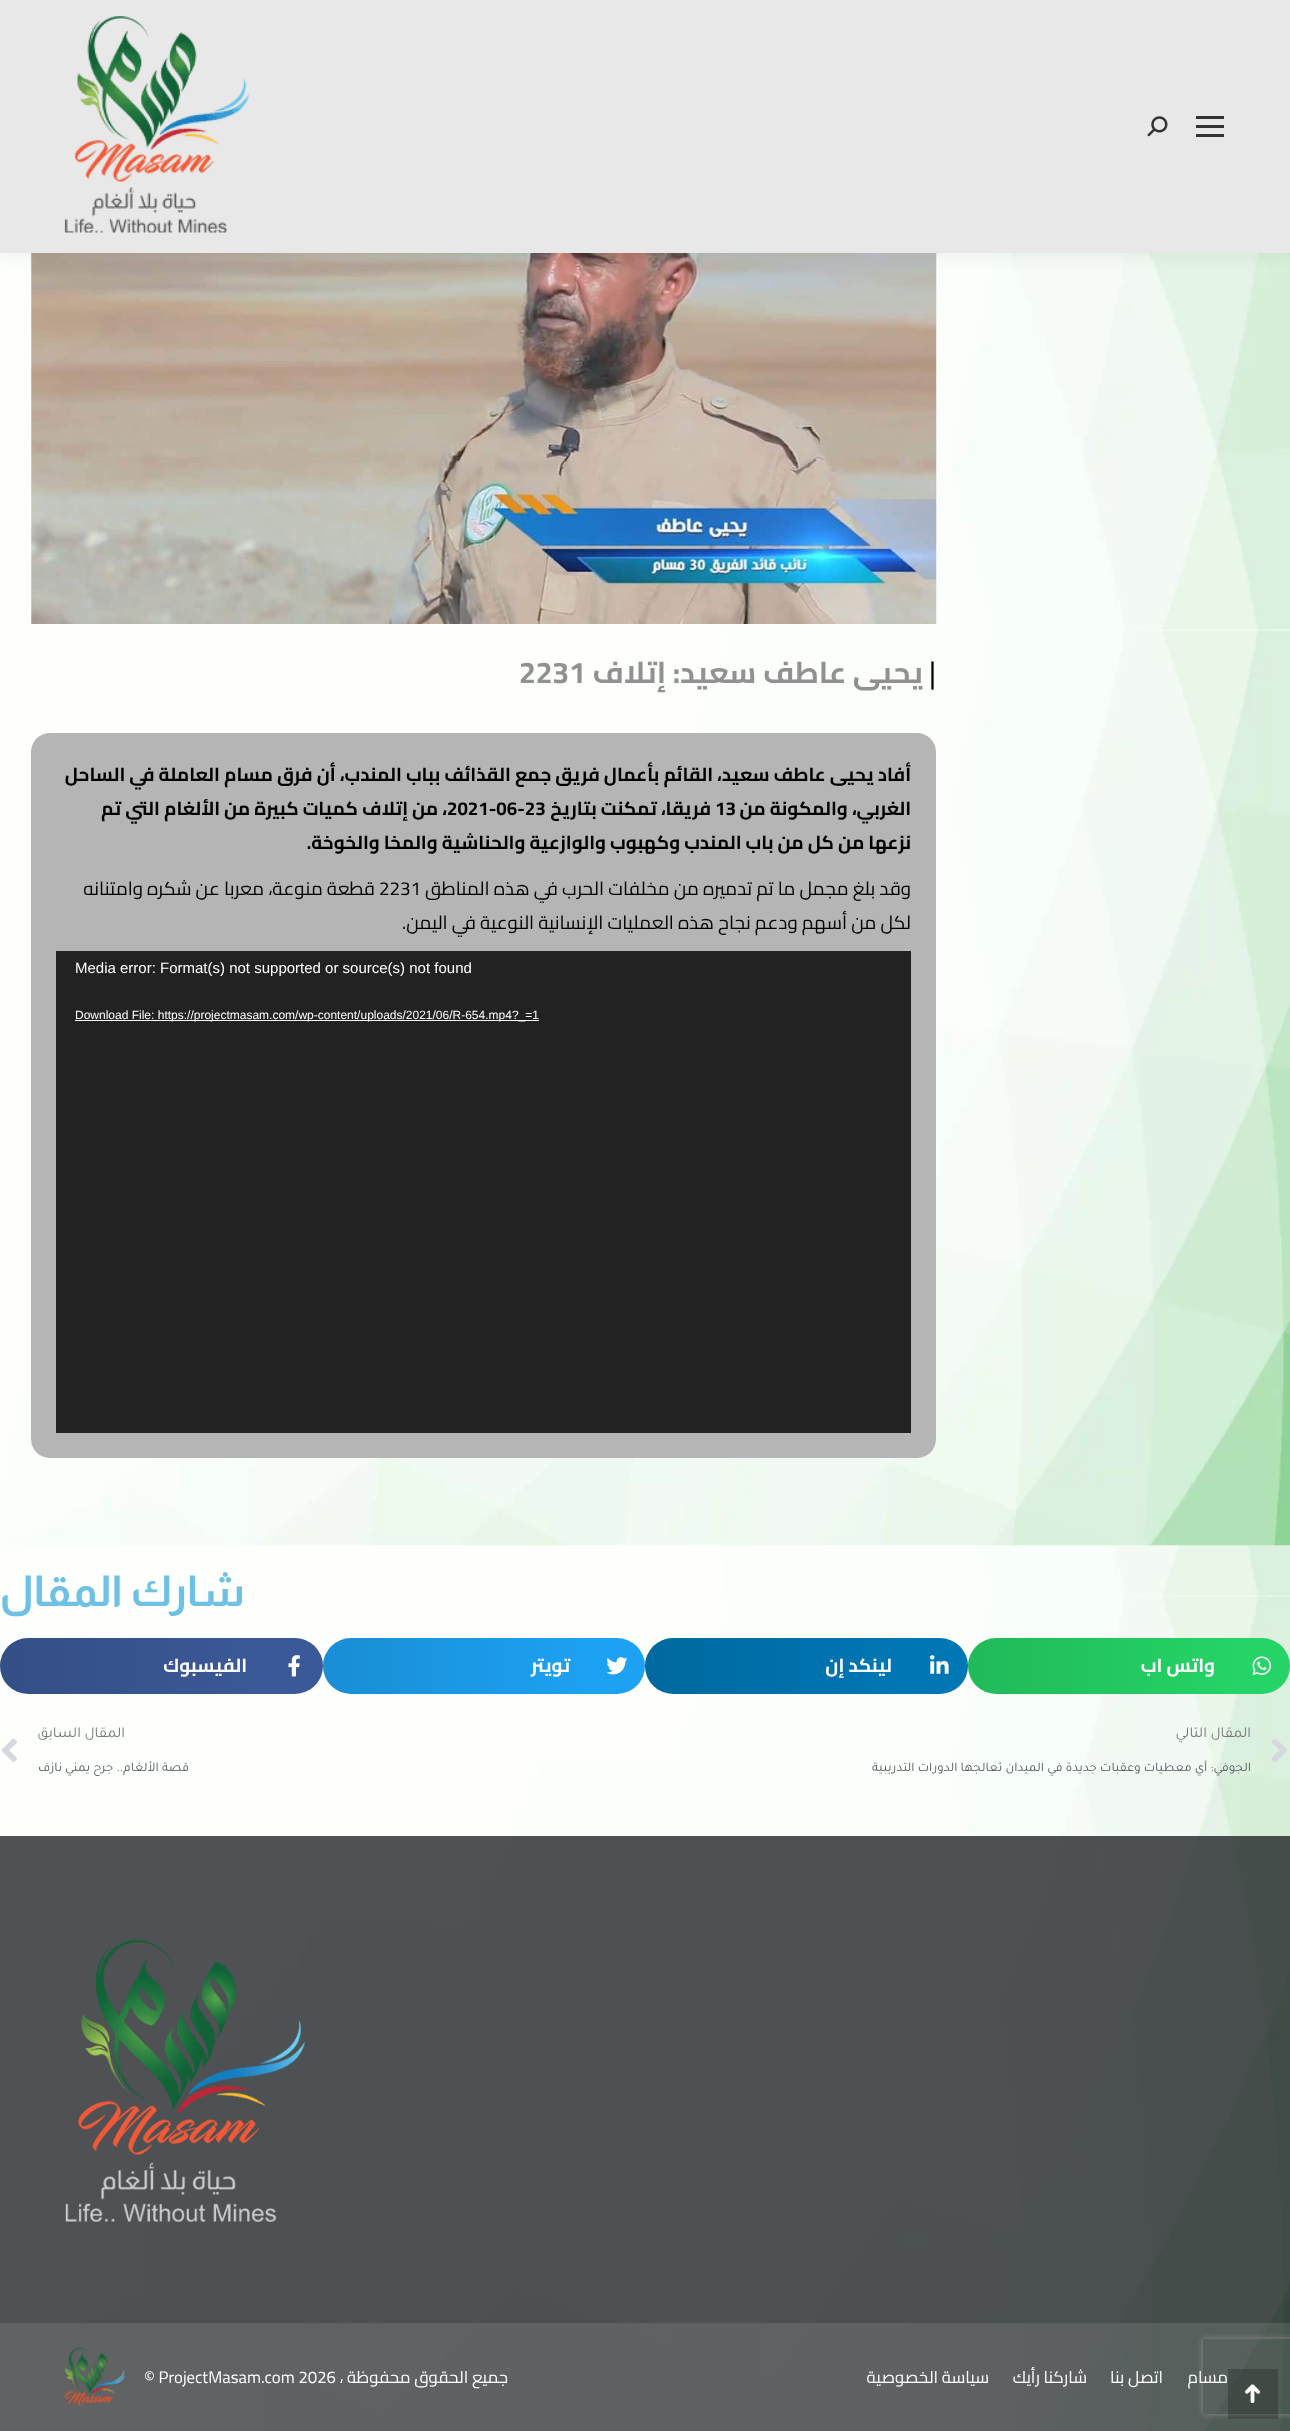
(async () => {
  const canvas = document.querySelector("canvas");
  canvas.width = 1290;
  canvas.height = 2431;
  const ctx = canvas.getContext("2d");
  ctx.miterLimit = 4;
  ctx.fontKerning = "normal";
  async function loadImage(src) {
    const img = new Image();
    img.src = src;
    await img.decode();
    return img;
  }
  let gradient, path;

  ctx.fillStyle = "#ffffff";
  ctx.fillRect(0, 0, 1290, 2431);
  ctx.drawImage(await loadImage("img/1.png"), 0, 1545, 1290, 886);
  ctx.drawImage(await loadImage("img/2.png"), 0, 253, 1290, 1293);
  ctx.drawImage(await loadImage("img/5.png"), 31, 253, 906, 371);
  ctx.fillStyle = "rgba(0, 0, 0, 0.07)";
  ctx.filter = "blur(9.5px)";
  ctx.beginPath();
  ctx.rect(-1, -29, 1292, 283);
  ctx.fill();
  ctx.filter = "none";
  for (const [x, y, w, h, color] of [
    [0, 0, 1290, 253, "#e8e8e8"],
    [1196, 116, 28, 3, "#333333"],
    [1196, 125, 28, 3, "#333333"],
    [1196, 134, 28, 3, "#333333"],
  ]) {
    ctx.fillStyle = color;
    ctx.fillRect(x, y, w, h);
  }
  ctx.drawImage(await loadImage("img/3.png"), 1147, 116, 21, 21);
  ctx.drawImage(await loadImage("img/4.png"), 64, 16, 185, 217);
  ctx.fillStyle = "#b5b5b5";
  ctx.beginPath();
  ctx.roundRect(31, 733, 905, 725, 19);
  ctx.fill();
  ctx.fillStyle = "#222222";
  ctx.fillRect(56, 951, 855, 482);
  ctx.fillStyle = "#ffffff";
  ctx.fillRect(75, 1020, 464, 1);
  ctx.fillStyle = "#25d366";
  ctx.beginPath();
  ctx.roundRect(968, 1638, 322, 56, 28);
  ctx.fill();
  ctx.drawImage(await loadImage("img/6.png"), 1252, 1656, 20, 19);
  gradient = ctx.createLinearGradient(968, 1666, 1234, 1666);
  gradient.addColorStop(0, "rgba(0, 0, 0, 0.12)");
  gradient.addColorStop(1, "rgba(0, 0, 0, 0)");
  ctx.fillStyle = gradient;
  ctx.beginPath();
  ctx.roundRect(968, 1638, 266, 56, [28, 0, 0, 28]);
  ctx.fill();
  ctx.fillStyle = "#0077b5";
  ctx.beginPath();
  ctx.roundRect(645, 1638, 323, 56, 28);
  ctx.fill();
  ctx.drawImage(await loadImage("img/7.png"), 930, 1655, 19, 19);
  gradient = ctx.createLinearGradient(645, 1666, 911, 1666);
  gradient.addColorStop(0, "rgba(0, 0, 0, 0.12)");
  gradient.addColorStop(1, "rgba(0, 0, 0, 0)");
  ctx.fillStyle = gradient;
  ctx.beginPath();
  ctx.roundRect(645, 1638, 266, 56, [28, 0, 0, 28]);
  ctx.fill();
  ctx.fillStyle = "#1da1f2";
  ctx.beginPath();
  ctx.roundRect(323, 1638, 322, 56, 28);
  ctx.fill();
  ctx.drawImage(await loadImage("img/8.png"), 606, 1657, 22, 18);
  gradient = ctx.createLinearGradient(323, 1666, 589, 1666);
  gradient.addColorStop(0, "rgba(0, 0, 0, 0.12)");
  gradient.addColorStop(1, "rgba(0, 0, 0, 0)");
  ctx.fillStyle = gradient;
  ctx.beginPath();
  ctx.roundRect(323, 1638, 266, 56, [28, 0, 0, 28]);
  ctx.fill();
  ctx.fillStyle = "#3b5998";
  ctx.beginPath();
  ctx.roundRect(0, 1638, 323, 56, 28);
  ctx.fill();
  ctx.drawImage(await loadImage("img/9.png"), 288, 1655, 12, 22);
  gradient = ctx.createLinearGradient(0, 1666, 266, 1666);
  gradient.addColorStop(0, "rgba(0, 0, 0, 0.12)");
  gradient.addColorStop(1, "rgba(0, 0, 0, 0)");
  ctx.fillStyle = gradient;
  ctx.beginPath();
  ctx.roundRect(0, 1638, 266, 56, [28, 0, 0, 28]);
  ctx.fill();
  ctx.drawImage(await loadImage("img/10.png"), 1272, 1738, 15, 24);
  ctx.drawImage(await loadImage("img/11.png"), 1, 1738, 16, 24);
  ctx.fillStyle = "rgba(26, 28, 32, 0.77)";
  ctx.fillRect(0, 1836, 1290, 595);
  ctx.save();
  path = new Path2D("M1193 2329H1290V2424H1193ZM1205.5 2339H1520.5C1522 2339 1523 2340 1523 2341.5V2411.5C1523 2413 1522 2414 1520.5 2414H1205.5C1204 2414 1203 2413 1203 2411.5V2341.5C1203 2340 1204 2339 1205.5 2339Z");
  ctx.clip(path, "evenodd");
  ctx.fillStyle = "#808080";
  ctx.filter = "blur(3px)";
  ctx.beginPath();
  ctx.roundRect(1203, 2339, 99, 75, 2.5);
  ctx.fill();
  ctx.filter = "none";
  ctx.restore();
  ctx.drawImage(await loadImage("img/12.png"), 65, 1939, 240, 283);
  ctx.fillStyle = "rgba(255, 255, 255, 0.1)";
  ctx.fillRect(0, 2323, 1290, 108);
  ctx.drawImage(await loadImage("img/13.png"), 63, 2347, 62, 60);
  ctx.fillStyle = "rgba(0, 0, 0, 0.2)";
  ctx.fillRect(1228, 2369, 50, 50);
  ctx.drawImage(await loadImage("img/14.png"), 1245, 2384, 15, 20);
  ctx.font = "30px Cairo";
  ctx.fillStyle = "#000000";
  ctx.fillText("|", 929, 683);
  ctx.direction = "rtl";
  ctx.font = "bold 30px Cairo";
  ctx.fillStyle = "#919191";
  ctx.fillText("يحيى عاطف سعيد: إتلاف", 923, 683);
  ctx.direction = "ltr";
  ctx.fillText("2231", 519, 683);
  ctx.direction = "rtl";
  ctx.font = "bold 18.75px Cairo";
  ctx.fillStyle = "#000000";
  ctx.fillText("أفاد يحيى عاطف سعيد، القائم بأعمال فريق جمع القذائف بباب المندب، أن فرق مسام العاملة في الساحل", 911, 781);
  ctx.fillText("الغربي، والمكونة من", 911, 815);
  ctx.direction = "ltr";
  ctx.fillText("13", 715, 815);
  ctx.direction = "rtl";
  ctx.fillText("فريقا، تمكنت بتاريخ", 711, 815);
  ctx.direction = "ltr";
  ctx.fillText("2021-06-23", 447, 815);
  ctx.direction = "rtl";
  ctx.fillText("، من إتلاف كميات كبيرة من الألغام التي تم", 447, 815);
  ctx.fillText("نزعها من كل من باب المندب وكهبوب والوازعية والحناشية والمخا والخوخة.", 911, 849);
  ctx.font = "18.75px Cairo";
  ctx.fillText("وقد بلغ مجمل ما تم تدميره من مخلفات الحرب في هذه المناطق", 911, 895);
  ctx.direction = "ltr";
  ctx.fillText("2231", 379, 895);
  ctx.direction = "rtl";
  ctx.fillText("قطعة منوعة، معربا عن شكره وامتنانه", 375, 895);
  ctx.fillText("لكل من أسهم ودعم نجاح هذه العمليات الإنسانية النوعية في اليمن.", 911, 929);
  ctx.direction = "ltr";
  ctx.font = "15px Liberation Sans";
  ctx.fillStyle = "#ffffff";
  ctx.fillText("Media error: Format(s) not supported or source(s) not found", 75, 973);
  ctx.font = "12px Liberation Sans";
  ctx.fillText("Download File: https://projectmasam.com/wp-content/uploads/2021/06/R-654.mp4?_=1", 75, 1019);
  ctx.direction = "rtl";
  ctx.font = "bold 42.5px Almarai";
  ctx.fillStyle = "#6ec1e4";
  ctx.fillText("شارك المقال", 245, 1606);
  ctx.font = "bold 18.75px Cairo";
  ctx.fillStyle = "#ffffff";
  for (const [text, x, y] of [
    ["واتس اب", 1215, 1672],
    ["لينكد إن", 892, 1672],
    ["تويتر", 570, 1672],
    ["الفيسبوك", 247, 1672],
  ]) {
    ctx.fillText(text, x, y);
  }
  ctx.font = "15px Tajawal";
  ctx.fillStyle = "#7a7a7a";
  ctx.fillText("المقال التالي", 1251, 1737);
  ctx.font = "13.1px Tajawal";
  ctx.fillStyle = "#54595f";
  ctx.fillText("الجوفي: أي معطيات وعقبات جديدة في الميدان تعالجها الدورات التدريبية", 1251, 1771);
  ctx.font = "15px Tajawal";
  ctx.fillStyle = "#7a7a7a";
  ctx.fillText("المقال السابق", 125, 1737);
  ctx.font = "13.1px Tajawal";
  ctx.fillStyle = "#54595f";
  ctx.fillText("قصة الألغام.. جرح يمني نازف", 189, 1771);
  ctx.font = "16.75px Cairo";
  ctx.fillStyle = "#ffffff";
  for (const [text, x, y] of [
    ["مسام", 1228, 2383],
    ["اتصل بنا", 1163, 2383],
    ["شاركنا رأيك", 1087, 2383],
    ["سياسة الخصوصية", 989, 2383],
    ["جميع الحقوق محفوظة", 508, 2383],
  ]) {
    ctx.fillText(text, x, y);
  }
  ctx.direction = "ltr";
  ctx.fillText("© ProjectMasam.com 2026 ،", 144, 2383);
})();
